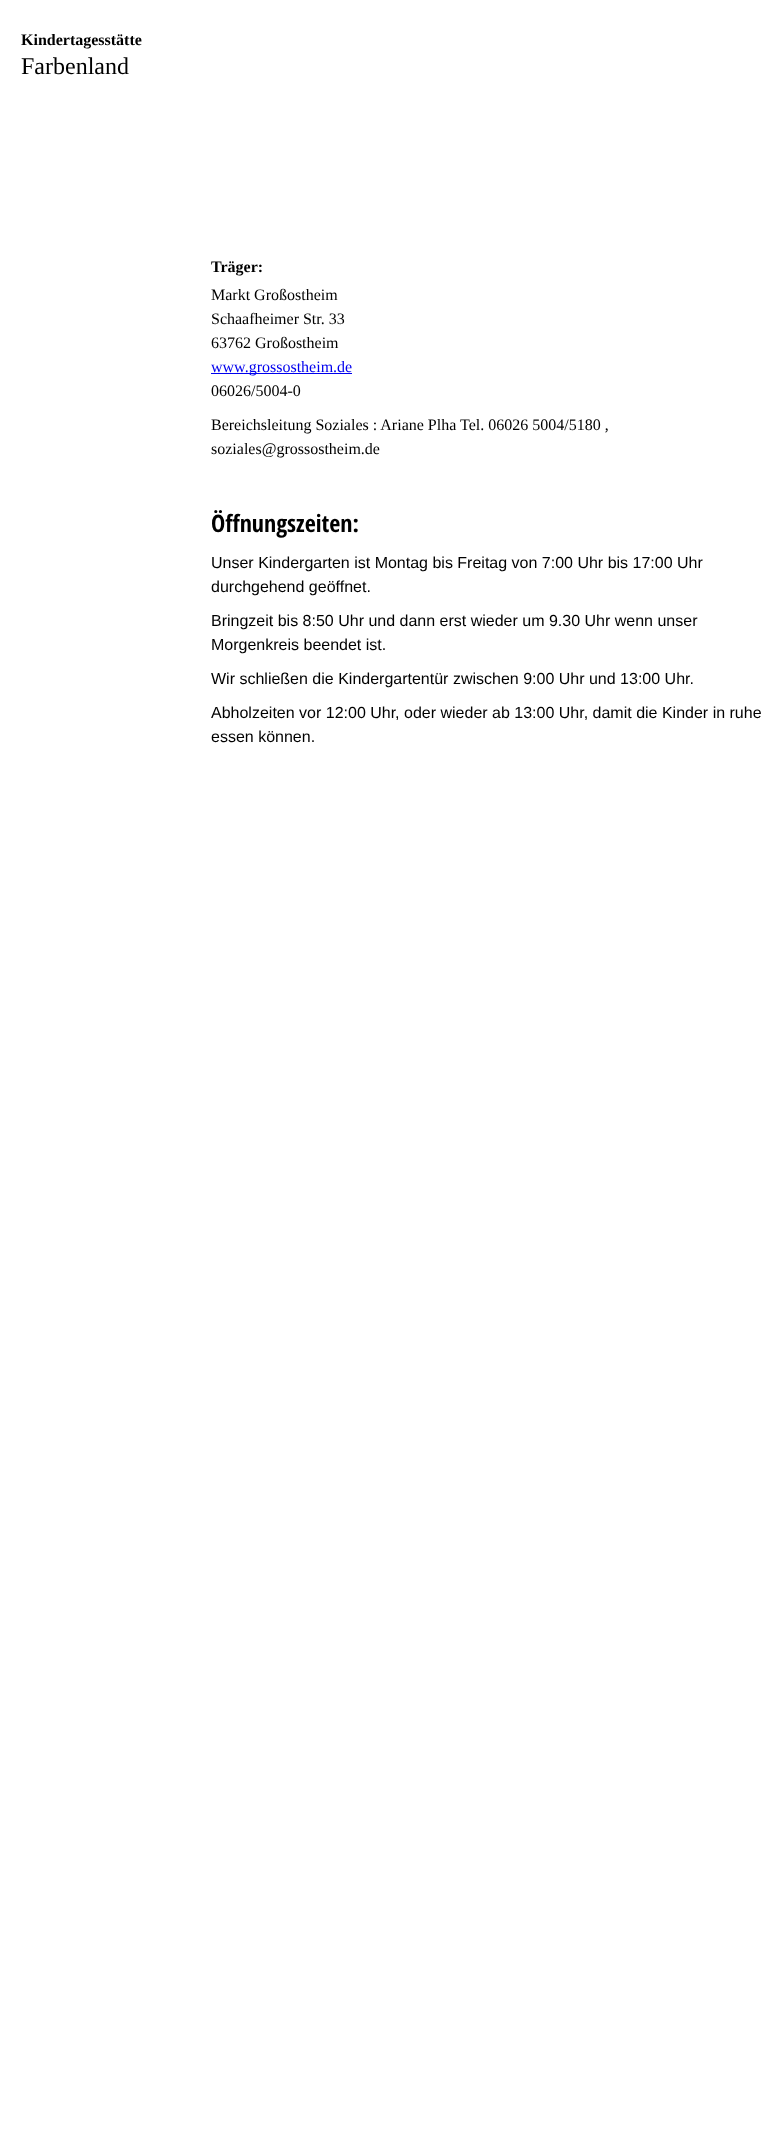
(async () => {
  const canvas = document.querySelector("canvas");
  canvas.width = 783;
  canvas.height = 2142;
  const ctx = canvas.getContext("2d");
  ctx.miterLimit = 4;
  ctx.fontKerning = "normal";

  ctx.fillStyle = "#ffffff";
  ctx.fillRect(0, 0, 783, 2142);
  ctx.fillStyle = "#0000ee";
  ctx.fillRect(211, 373, 141, 1);
  ctx.font = "bold 16px Liberation Serif";
  ctx.fillStyle = "#000000";
  ctx.fillText("Kindertagesstätte", 21, 45);
  ctx.font = "24px Liberation Serif";
  ctx.fillText("Farbenland", 21, 74);
  ctx.font = "bold 16px Liberation Serif";
  ctx.fillText("Träger:", 211, 272);
  ctx.font = "16px Liberation Serif";
  for (const [text, x, y] of [
    ["Markt Großostheim", 211, 300],
    ["Schaafheimer Str. 33", 211, 324],
    ["63762 Großostheim", 211, 348],
  ]) {
    ctx.fillText(text, x, y);
  }
  ctx.fillStyle = "#0000ee";
  ctx.fillText("www.grossostheim.de", 211, 372);
  ctx.fillStyle = "#000000";
  for (const [text, x, y] of [
    ["06026/5004-0", 211, 396],
    ["Bereichsleitung Soziales : Ariane Plha Tel. 06026 5004/5180 ,", 211, 430],
    ["soziales@grossostheim.de", 211, 454],
  ]) {
    ctx.fillText(text, x, y);
  }
  ctx.font = "bold 24px Open Sans Condensed";
  ctx.fillText("Öffnungszeiten:", 211, 532);
  ctx.font = "16px Liberation Sans";
  for (const [text, x, y] of [
    ["Unser Kindergarten ist Montag bis Freitag von 7:00 Uhr bis 17:00 Uhr", 211, 568],
    ["durchgehend geöffnet.", 211, 592],
    ["Bringzeit bis 8:50 Uhr und dann erst wieder um 9.30 Uhr wenn unser", 211, 626],
    ["Morgenkreis beendet ist.", 211, 650],
    ["Wir schließen die Kindergartentür zwischen 9:00 Uhr und 13:00 Uhr.", 211, 684],
    ["Abholzeiten vor 12:00 Uhr, oder wieder ab 13:00 Uhr, damit die Kinder in ruhe", 211, 718],
    ["essen können.", 211, 742],
  ]) {
    ctx.fillText(text, x, y);
  }
})();
